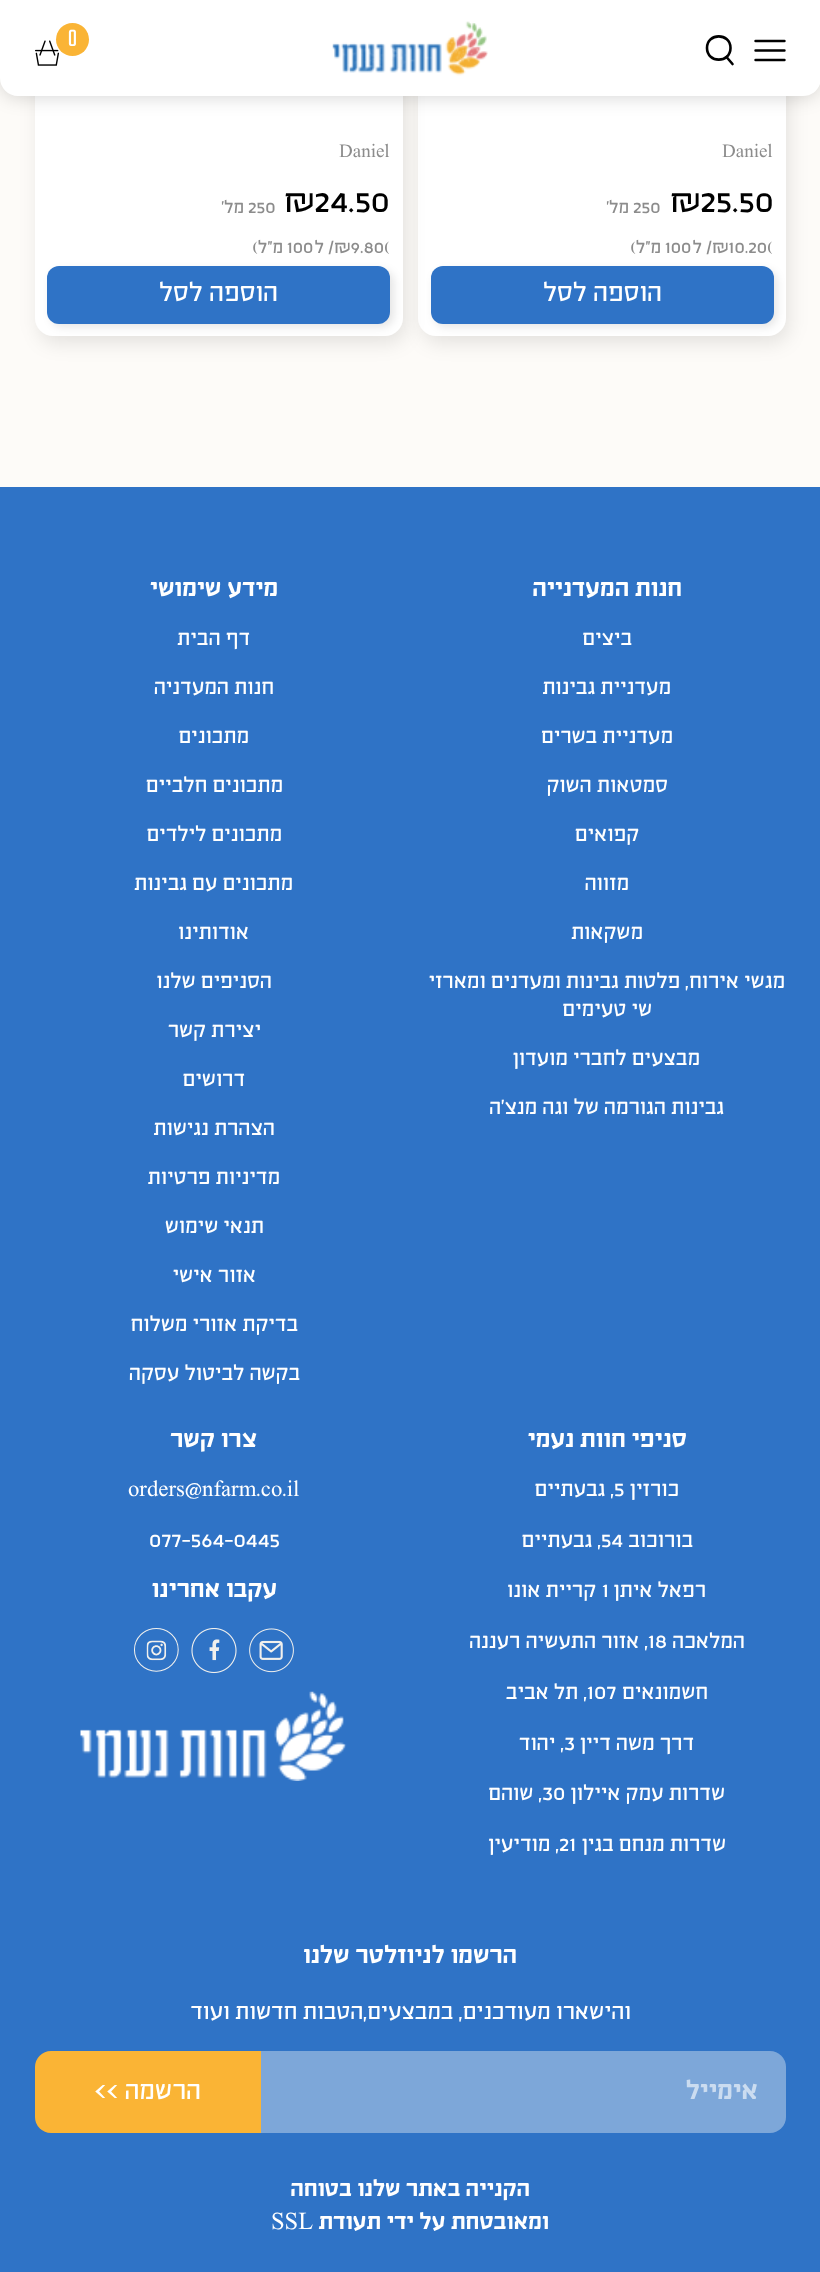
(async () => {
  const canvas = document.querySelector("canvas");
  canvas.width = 820;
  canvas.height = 2272;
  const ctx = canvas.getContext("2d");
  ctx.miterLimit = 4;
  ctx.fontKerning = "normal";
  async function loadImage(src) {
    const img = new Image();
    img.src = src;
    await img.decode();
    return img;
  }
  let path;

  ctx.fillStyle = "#fdfbf8";
  ctx.fillRect(0, 0, 820, 2272);
  ctx.fillStyle = "rgba(0, 0, 0, 0.1)";
  ctx.filter = "blur(9.5px)";
  ctx.beginPath();
  ctx.roundRect(422, -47, 367, 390, 18);
  ctx.fill();
  ctx.filter = "none";
  ctx.fillStyle = "#ffffff";
  ctx.beginPath();
  ctx.roundRect(418, -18, 368, 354, 18);
  ctx.fill();
  ctx.fillStyle = "rgba(0, 0, 0, 0.1)";
  ctx.filter = "blur(4.5px)";
  ctx.beginPath();
  ctx.roundRect(434, 270, 343, 57, 12);
  ctx.fill();
  ctx.filter = "none";
  ctx.fillStyle = "#2f73c6";
  ctx.beginPath();
  ctx.roundRect(431, 266, 343, 58, 12);
  ctx.fill();
  ctx.fillStyle = "rgba(0, 0, 0, 0.1)";
  ctx.filter = "blur(9.5px)";
  ctx.beginPath();
  ctx.roundRect(39, -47, 367, 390, 18);
  ctx.fill();
  ctx.filter = "none";
  ctx.fillStyle = "#ffffff";
  ctx.beginPath();
  ctx.roundRect(35, -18, 368, 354, 18);
  ctx.fill();
  ctx.fillStyle = "rgba(0, 0, 0, 0.15)";
  ctx.filter = "blur(9px)";
  ctx.beginPath();
  ctx.roundRect(0, 2, 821, 96, 18);
  ctx.fill();
  ctx.filter = "none";
  ctx.fillStyle = "#ffffff";
  path = new Path2D("M0 0H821V78C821 88 813 96 803 96H18C8 96 0 88 0 78Z");
  ctx.fill(path);
  path = new Path2D("M784.5 41H755.5M784.5 50.5H755.5M784.5 60H755.5");
  ctx.strokeStyle = "#000000";
  ctx.lineWidth = 2.4;
  ctx.lineCap = "round";
  ctx.stroke(path);
  path = new Path2D("M707 48C707 63.5 730.5 63.5 730.5 48C730.5 32.5 707 32.5 707 48Z");
  ctx.lineWidth = 2.6;
  ctx.lineCap = "butt";
  ctx.stroke(path);
  path = new Path2D("M726.5 57L732.5 64");
  ctx.lineCap = "round";
  ctx.stroke(path);
  ctx.drawImage(await loadImage("img/1.png"), 332, 21, 156, 55);
  ctx.drawImage(await loadImage("img/2.png"), 35, 40, 24, 26);
  ctx.fillStyle = "#fab435";
  ctx.beginPath();
  ctx.arc(72.5, 39.5, 16.5, 0, Math.PI * 2);
  ctx.fill();
  ctx.fillStyle = "rgba(0, 0, 0, 0.1)";
  ctx.filter = "blur(4.5px)";
  ctx.beginPath();
  ctx.roundRect(51, 270, 343, 57, 12);
  ctx.fill();
  ctx.filter = "none";
  ctx.fillStyle = "#2f73c6";
  ctx.beginPath();
  ctx.roundRect(47, 266, 343, 58, 12);
  ctx.fill();
  ctx.fillRect(0, 487, 820, 1785);
  ctx.drawImage(await loadImage("img/3.png"), 249, 1628, 45, 45);
  ctx.drawImage(await loadImage("img/4.png"), 191, 1628, 46, 46);
  ctx.drawImage(await loadImage("img/5.png"), 134, 1628, 45, 44);
  ctx.drawImage(await loadImage("img/6.png"), 80, 1691, 267, 90);
  ctx.fillStyle = "#7da7d9";
  ctx.beginPath();
  ctx.roundRect(261, 2051, 525, 82, [0, 16, 16, 0]);
  ctx.fill();
  ctx.fillStyle = "#fab435";
  ctx.beginPath();
  ctx.roundRect(35, 2051, 226, 82, [16, 0, 0, 16]);
  ctx.fill();
  ctx.font = "21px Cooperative";
  ctx.fillStyle = "#ffffff";
  ctx.fillText("0", 68, 46);
  ctx.font = "italic 300 19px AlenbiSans";
  ctx.fillStyle = "#8c8c8c";
  ctx.fillText("Daniel", 722, 157);
  ctx.font = "italic 300 35px AlenbiSans";
  ctx.fillStyle = "#000000";
  ctx.fillText("₪25.50", 670, 212);
  ctx.font = "italic 300 19px AlenbiSans";
  ctx.fillStyle = "#8c8c8c";
  ctx.fillText("250", 633, 213);
  ctx.direction = "rtl";
  ctx.fillText("מל'", 629, 213);
  ctx.direction = "ltr";
  ctx.fillText("/₪10.20(", 706, 253);
  ctx.direction = "rtl";
  ctx.fillText("ל", 702, 253);
  ctx.direction = "ltr";
  ctx.fillText("100", 665, 253);
  ctx.direction = "rtl";
  ctx.fillText("מ\"ל)", 661, 253);
  ctx.font = "italic 300 28px AlenbiSans";
  ctx.fillStyle = "#ffffff";
  ctx.fillText("הוספה לסל", 662, 301);
  ctx.direction = "ltr";
  ctx.font = "italic 300 19px AlenbiSans";
  ctx.fillStyle = "#8c8c8c";
  ctx.fillText("Daniel", 339, 157);
  ctx.font = "italic 300 35px AlenbiSans";
  ctx.fillStyle = "#000000";
  ctx.fillText("₪24.50", 284, 212);
  ctx.font = "italic 300 19px AlenbiSans";
  ctx.fillStyle = "#8c8c8c";
  ctx.fillText("250", 248, 213);
  ctx.direction = "rtl";
  ctx.fillText("מל'", 244, 213);
  ctx.direction = "ltr";
  ctx.fillText("/₪9.80(", 328, 253);
  ctx.direction = "rtl";
  ctx.fillText("ל", 324, 253);
  ctx.direction = "ltr";
  ctx.fillText("100", 287, 253);
  ctx.direction = "rtl";
  ctx.fillText("מ\"ל)", 283, 253);
  ctx.font = "italic 300 28px AlenbiSans";
  ctx.fillStyle = "#ffffff";
  ctx.fillText("הוספה לסל", 278, 301);
  ctx.font = "26.25px AlenbiSans";
  ctx.fillText("חנות המעדנייה", 682, 596);
  ctx.font = "italic 300 22.75px AlenbiSans";
  for (const [text, x, y] of [
    ["ביצים", 632, 645],
    ["מעדניית גבינות", 671, 694],
    ["מעדניית בשרים", 673, 743],
    ["סמטאות השוק", 668, 792],
    ["קפואים", 639, 841],
    ["מזווה", 629, 890],
    ["משקאות", 643, 939],
    ["מגשי אירוח, פלטות גבינות ומעדנים ומארזי", 785, 988],
    ["שי טעימים", 652, 1016],
    ["מבצעים לחברי מועדון", 700, 1065],
    ["גבינות הגורמה של וגה מנצ'ה", 724, 1114],
  ]) {
    ctx.fillText(text, x, y);
  }
  ctx.font = "26.25px AlenbiSans";
  ctx.fillText("מידע שימושי", 278, 596);
  ctx.font = "italic 300 22.75px AlenbiSans";
  for (const [text, x, y] of [
    ["דף הבית", 250, 645],
    ["חנות המעדניה", 274, 694],
    ["מתכונים", 249, 743],
    ["מתכונים חלביים", 283, 792],
    ["מתכונים לילדים", 282, 841],
    ["מתכונים עם גבינות", 293, 890],
    ["אודותינו", 249, 939],
    ["הסניפים שלנו", 272, 988],
    ["יצירת קשר", 261, 1037],
    ["דרושים", 245, 1086],
    ["הצהרת נגישות", 275, 1135],
    ["מדיניות פרטיות", 280, 1184],
    ["תנאי שימוש", 264, 1233],
    ["אזור אישי", 256, 1282],
    ["בדיקת אזורי משלוח", 298, 1331],
    ["בקשה לביטול עסקה", 300, 1380],
  ]) {
    ctx.fillText(text, x, y);
  }
  ctx.font = "26.25px AlenbiSans";
  ctx.fillText("סניפי חוות נעמי", 687, 1447);
  ctx.font = "italic 300 22.75px AlenbiSans";
  ctx.fillText("כורזין", 679, 1496);
  ctx.direction = "ltr";
  ctx.fillText("5", 614, 1496);
  ctx.direction = "rtl";
  ctx.fillText(", גבעתיים", 614, 1496);
  ctx.fillText("בורוכוב", 693, 1547);
  ctx.direction = "ltr";
  ctx.fillText("54", 601, 1547);
  ctx.direction = "rtl";
  ctx.fillText(", גבעתיים", 601, 1547);
  ctx.fillText("רפאל איתן", 706, 1597);
  ctx.direction = "ltr";
  ctx.fillText("1", 602, 1597);
  ctx.direction = "rtl";
  ctx.fillText("קריית אונו", 596, 1597);
  ctx.fillText("המלאכה", 745, 1648);
  ctx.direction = "ltr";
  ctx.fillText("18", 648, 1648);
  ctx.direction = "rtl";
  ctx.fillText(", אזור התעשיה רעננה", 648, 1648);
  ctx.fillText("חשמונאים", 708, 1699);
  ctx.direction = "ltr";
  ctx.fillText("107", 587, 1699);
  ctx.direction = "rtl";
  ctx.fillText(", תל אביב", 587, 1699);
  ctx.fillText("דרך משה דיין", 694, 1750);
  ctx.direction = "ltr";
  ctx.fillText("3", 564, 1750);
  ctx.direction = "rtl";
  ctx.fillText(", יהוד", 564, 1750);
  ctx.fillText("שדרות עמק איילון", 725, 1800);
  ctx.direction = "ltr";
  ctx.fillText("30", 542, 1800);
  ctx.direction = "rtl";
  ctx.fillText(", שוהם", 542, 1800);
  ctx.fillText("שדרות מנחם בגין", 726, 1851);
  ctx.direction = "ltr";
  ctx.fillText("21", 559, 1851);
  ctx.direction = "rtl";
  ctx.fillText(", מודיעין", 559, 1851);
  ctx.font = "26.25px AlenbiSans";
  ctx.fillText("צרו קשר", 257, 1447);
  ctx.direction = "ltr";
  ctx.font = "italic 300 22.75px AlenbiSans";
  ctx.fillText("orders@nfarm.co.il", 128, 1496);
  ctx.fillText("077-564-0445", 149, 1547);
  ctx.direction = "rtl";
  ctx.font = "26.25px AlenbiSans";
  ctx.fillText("עקבו אחרינו", 277, 1597);
  ctx.fillText("הרשמו לניוזלטר שלנו", 517, 1963);
  ctx.font = "italic 300 24.5px AlenbiSans";
  ctx.fillText("והישארו מעודכנים, במבצעים,הטבות חדשות ועוד", 631, 2019);
  ctx.font = "28px AlenbiSans";
  ctx.fillStyle = "#cbdcf0";
  ctx.fillText("אימייל", 758, 2099);
  ctx.font = "italic 300 28px AlenbiSans";
  ctx.fillStyle = "#ffffff";
  ctx.fillText("הרשמה >>", 201, 2099);
  ctx.font = "24.5px AlenbiSans";
  ctx.fillText("הקנייה באתר שלנו בטוחה", 530, 2196);
  ctx.fillText("ומאובטחת על ידי תעודת", 549, 2229);
  ctx.direction = "ltr";
  ctx.fillText("SSL", 271, 2229);
})();
